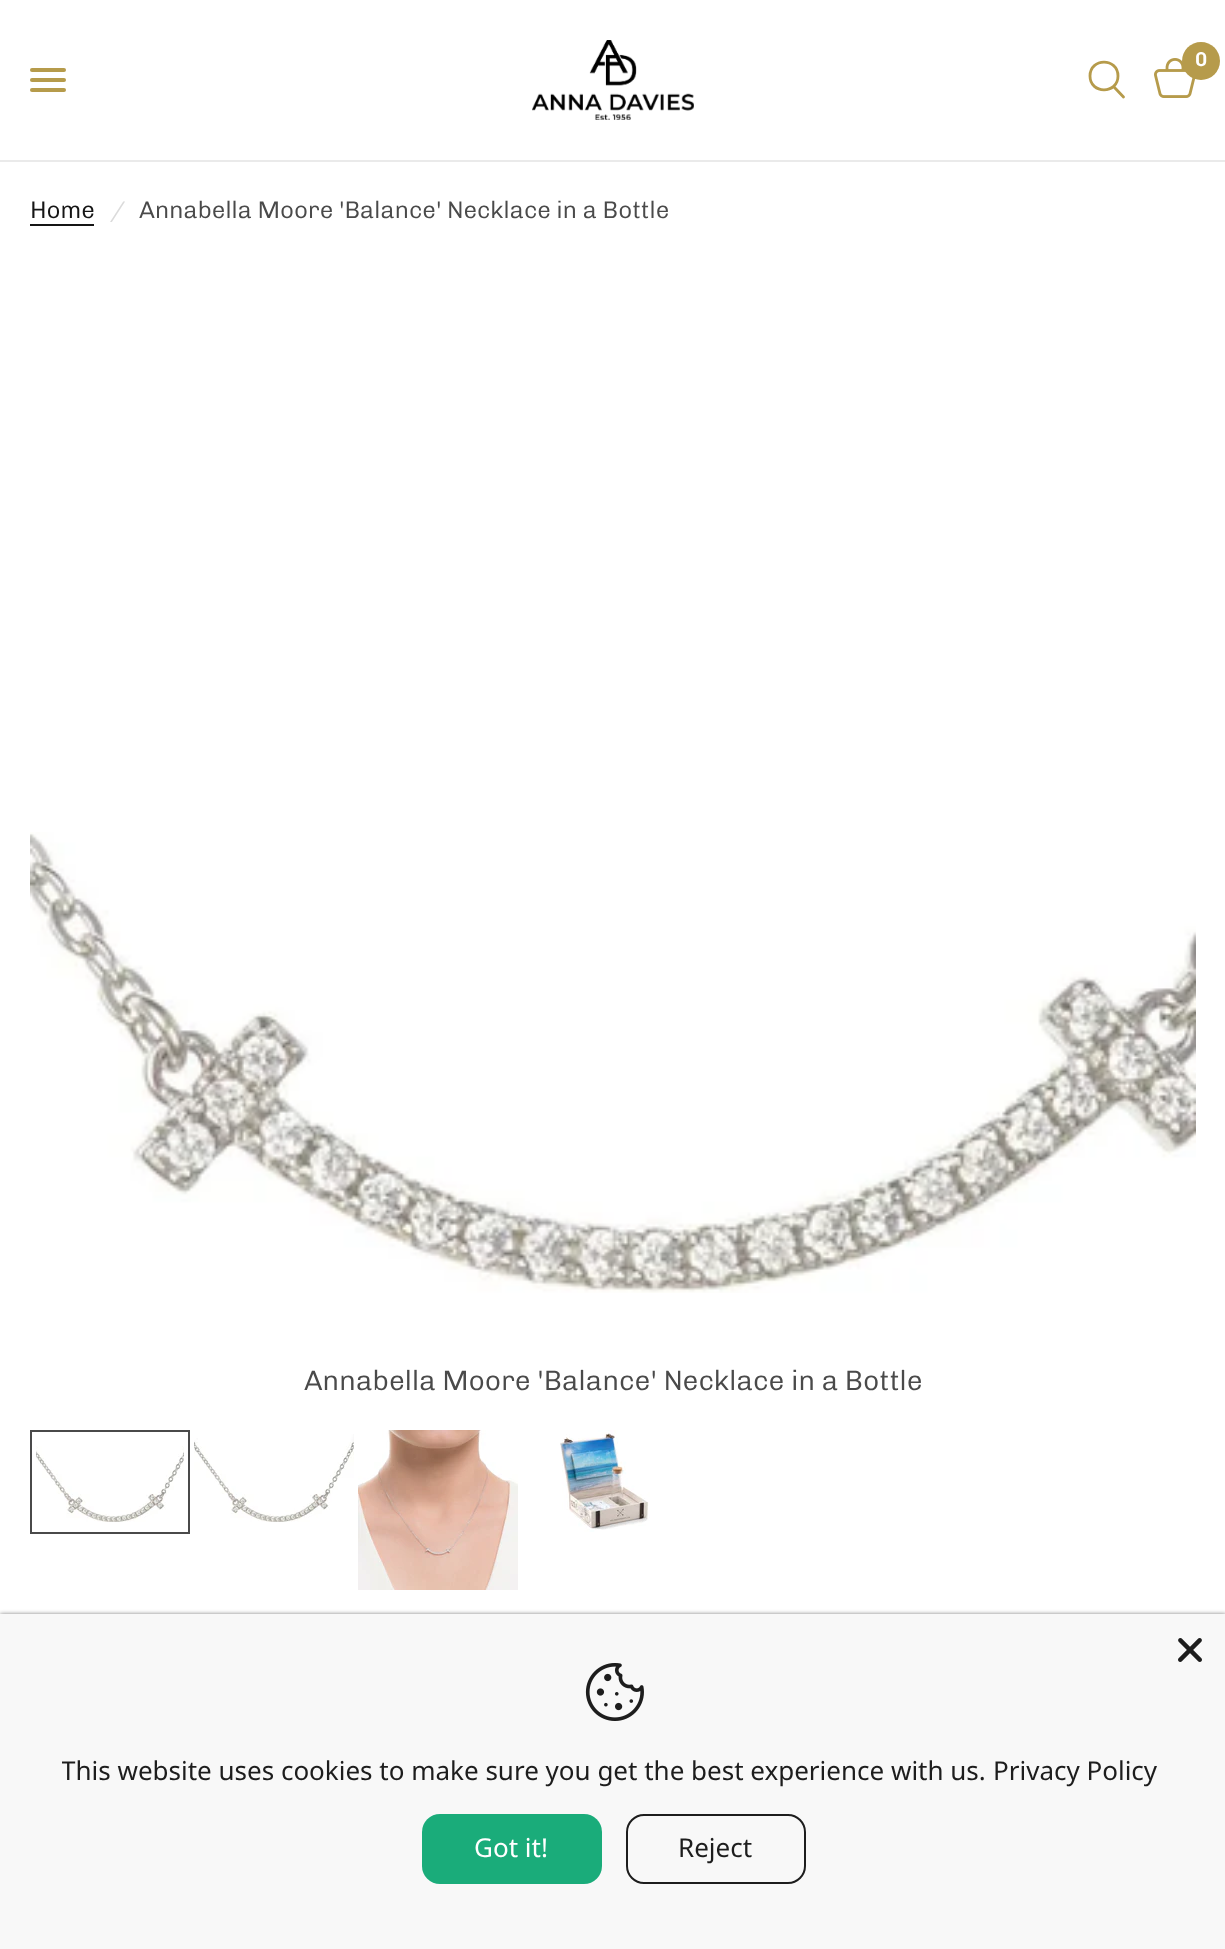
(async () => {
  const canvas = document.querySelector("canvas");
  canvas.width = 1225;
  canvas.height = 1949;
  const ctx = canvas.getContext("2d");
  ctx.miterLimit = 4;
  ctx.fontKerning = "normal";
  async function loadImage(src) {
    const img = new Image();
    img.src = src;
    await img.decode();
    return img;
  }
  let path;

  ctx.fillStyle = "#ffffff";
  ctx.fillRect(0, 0, 1225, 1949);
  ctx.fillStyle = "#eaeaea";
  ctx.fillRect(0, 160, 1225, 2);
  ctx.drawImage(await loadImage("img/1.png"), 532, 40, 162, 80);
  path = new Path2D("M1114 87L1123.5 97M1118 76C1118 94.5 1090 94.5 1090 76C1090 57.5 1118 57.5 1118 76Z");
  ctx.strokeStyle = "#b69b4b";
  ctx.lineWidth = 2.8;
  ctx.lineCap = "round";
  ctx.lineJoin = "round";
  ctx.stroke(path);
  ctx.drawImage(await loadImage("img/2.png"), 1154, 58, 41, 40);
  ctx.fillStyle = "#b69b4b";
  ctx.beginPath();
  ctx.arc(1201, 61, 19, 0, Math.PI * 2);
  ctx.fill();
  ctx.beginPath();
  ctx.roundRect(30, 68, 36, 4, 2);
  ctx.fill();
  ctx.beginPath();
  ctx.roundRect(30, 78, 36, 4, 2);
  ctx.fill();
  ctx.beginPath();
  ctx.roundRect(30, 88, 36, 4, 2);
  ctx.fill();
  ctx.fillStyle = "#151515";
  ctx.fillRect(30, 224, 64, 2);
  ctx.drawImage(await loadImage("img/3.png"), 30, 832, 1166, 461);
  ctx.drawImage(await loadImage("img/4.png"), 36, 1436, 148, 86);
  ctx.strokeStyle = "#4a4a4a";
  ctx.lineWidth = 2;
  ctx.lineJoin = "miter";
  ctx.strokeRect(31, 1431, 158, 102);
  ctx.drawImage(await loadImage("img/5.png"), 194, 1434, 160, 88);
  ctx.drawImage(await loadImage("img/6.png"), 358, 1430, 160, 160);
  ctx.drawImage(await loadImage("img/7.png"), 560, 1430, 90, 102);
  ctx.fillStyle = "rgba(0, 0, 0, 0.5)";
  ctx.filter = "blur(2px)";
  ctx.beginPath();
  ctx.rect(0, 1614, 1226, 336);
  ctx.fill();
  ctx.filter = "none";
  ctx.fillStyle = "#f8f8f8";
  ctx.fillRect(0, 1614, 1225, 335);
  ctx.drawImage(await loadImage("img/8.png"), 1178, 1638, 24, 24);
  ctx.drawImage(await loadImage("img/9.png"), 585, 1663, 59, 58);
  ctx.fillStyle = "#1aac7a";
  ctx.beginPath();
  ctx.roundRect(422, 1814, 180, 70, 18);
  ctx.fill();
  ctx.beginPath();
  ctx.roundRect(627, 1815, 178, 68, 17);
  ctx.strokeStyle = "#1d1d1d";
  ctx.stroke();
  ctx.font = "600 20px Chivo";
  ctx.fillStyle = "#ffffff";
  ctx.fillText("0", 1195, 66);
  ctx.font = "300 24px Chivo";
  ctx.fillStyle = "#151515";
  ctx.fillText("Home", 30, 218);
  ctx.font = "italic 300 24px Chivo";
  ctx.fillStyle = "#dbdbdb";
  ctx.fillText("/", 111, 218);
  ctx.font = "300 24px Chivo";
  ctx.fillStyle = "#4a4a4a";
  ctx.fillText("Annabella Moore 'Balance' Necklace in a Bottle", 139, 218);
  ctx.font = "300 28px Chivo";
  ctx.fillText("Annabella Moore 'Balance' Necklace in a Bottle", 304, 1390);
  ctx.save();
  ctx.beginPath();
  ctx.rect(62, 1750, 1102, 42);
  ctx.clip();
  ctx.font = "26px Noto Sans";
  ctx.fillStyle = "#1d1d1d";
  ctx.fillText("This website uses cookies to make sure you get the best experience with us.", 61, 1780);
  ctx.restore();
  ctx.font = "26px Noto Sans";
  ctx.fillStyle = "#1d1d1d";
  ctx.fillText("Privacy Policy", 993, 1780);
  ctx.fillStyle = "#ffffff";
  ctx.fillText("Got it!", 474, 1857);
  ctx.fillStyle = "#1d1d1d";
  ctx.fillText("Reject", 678, 1857);
})();
